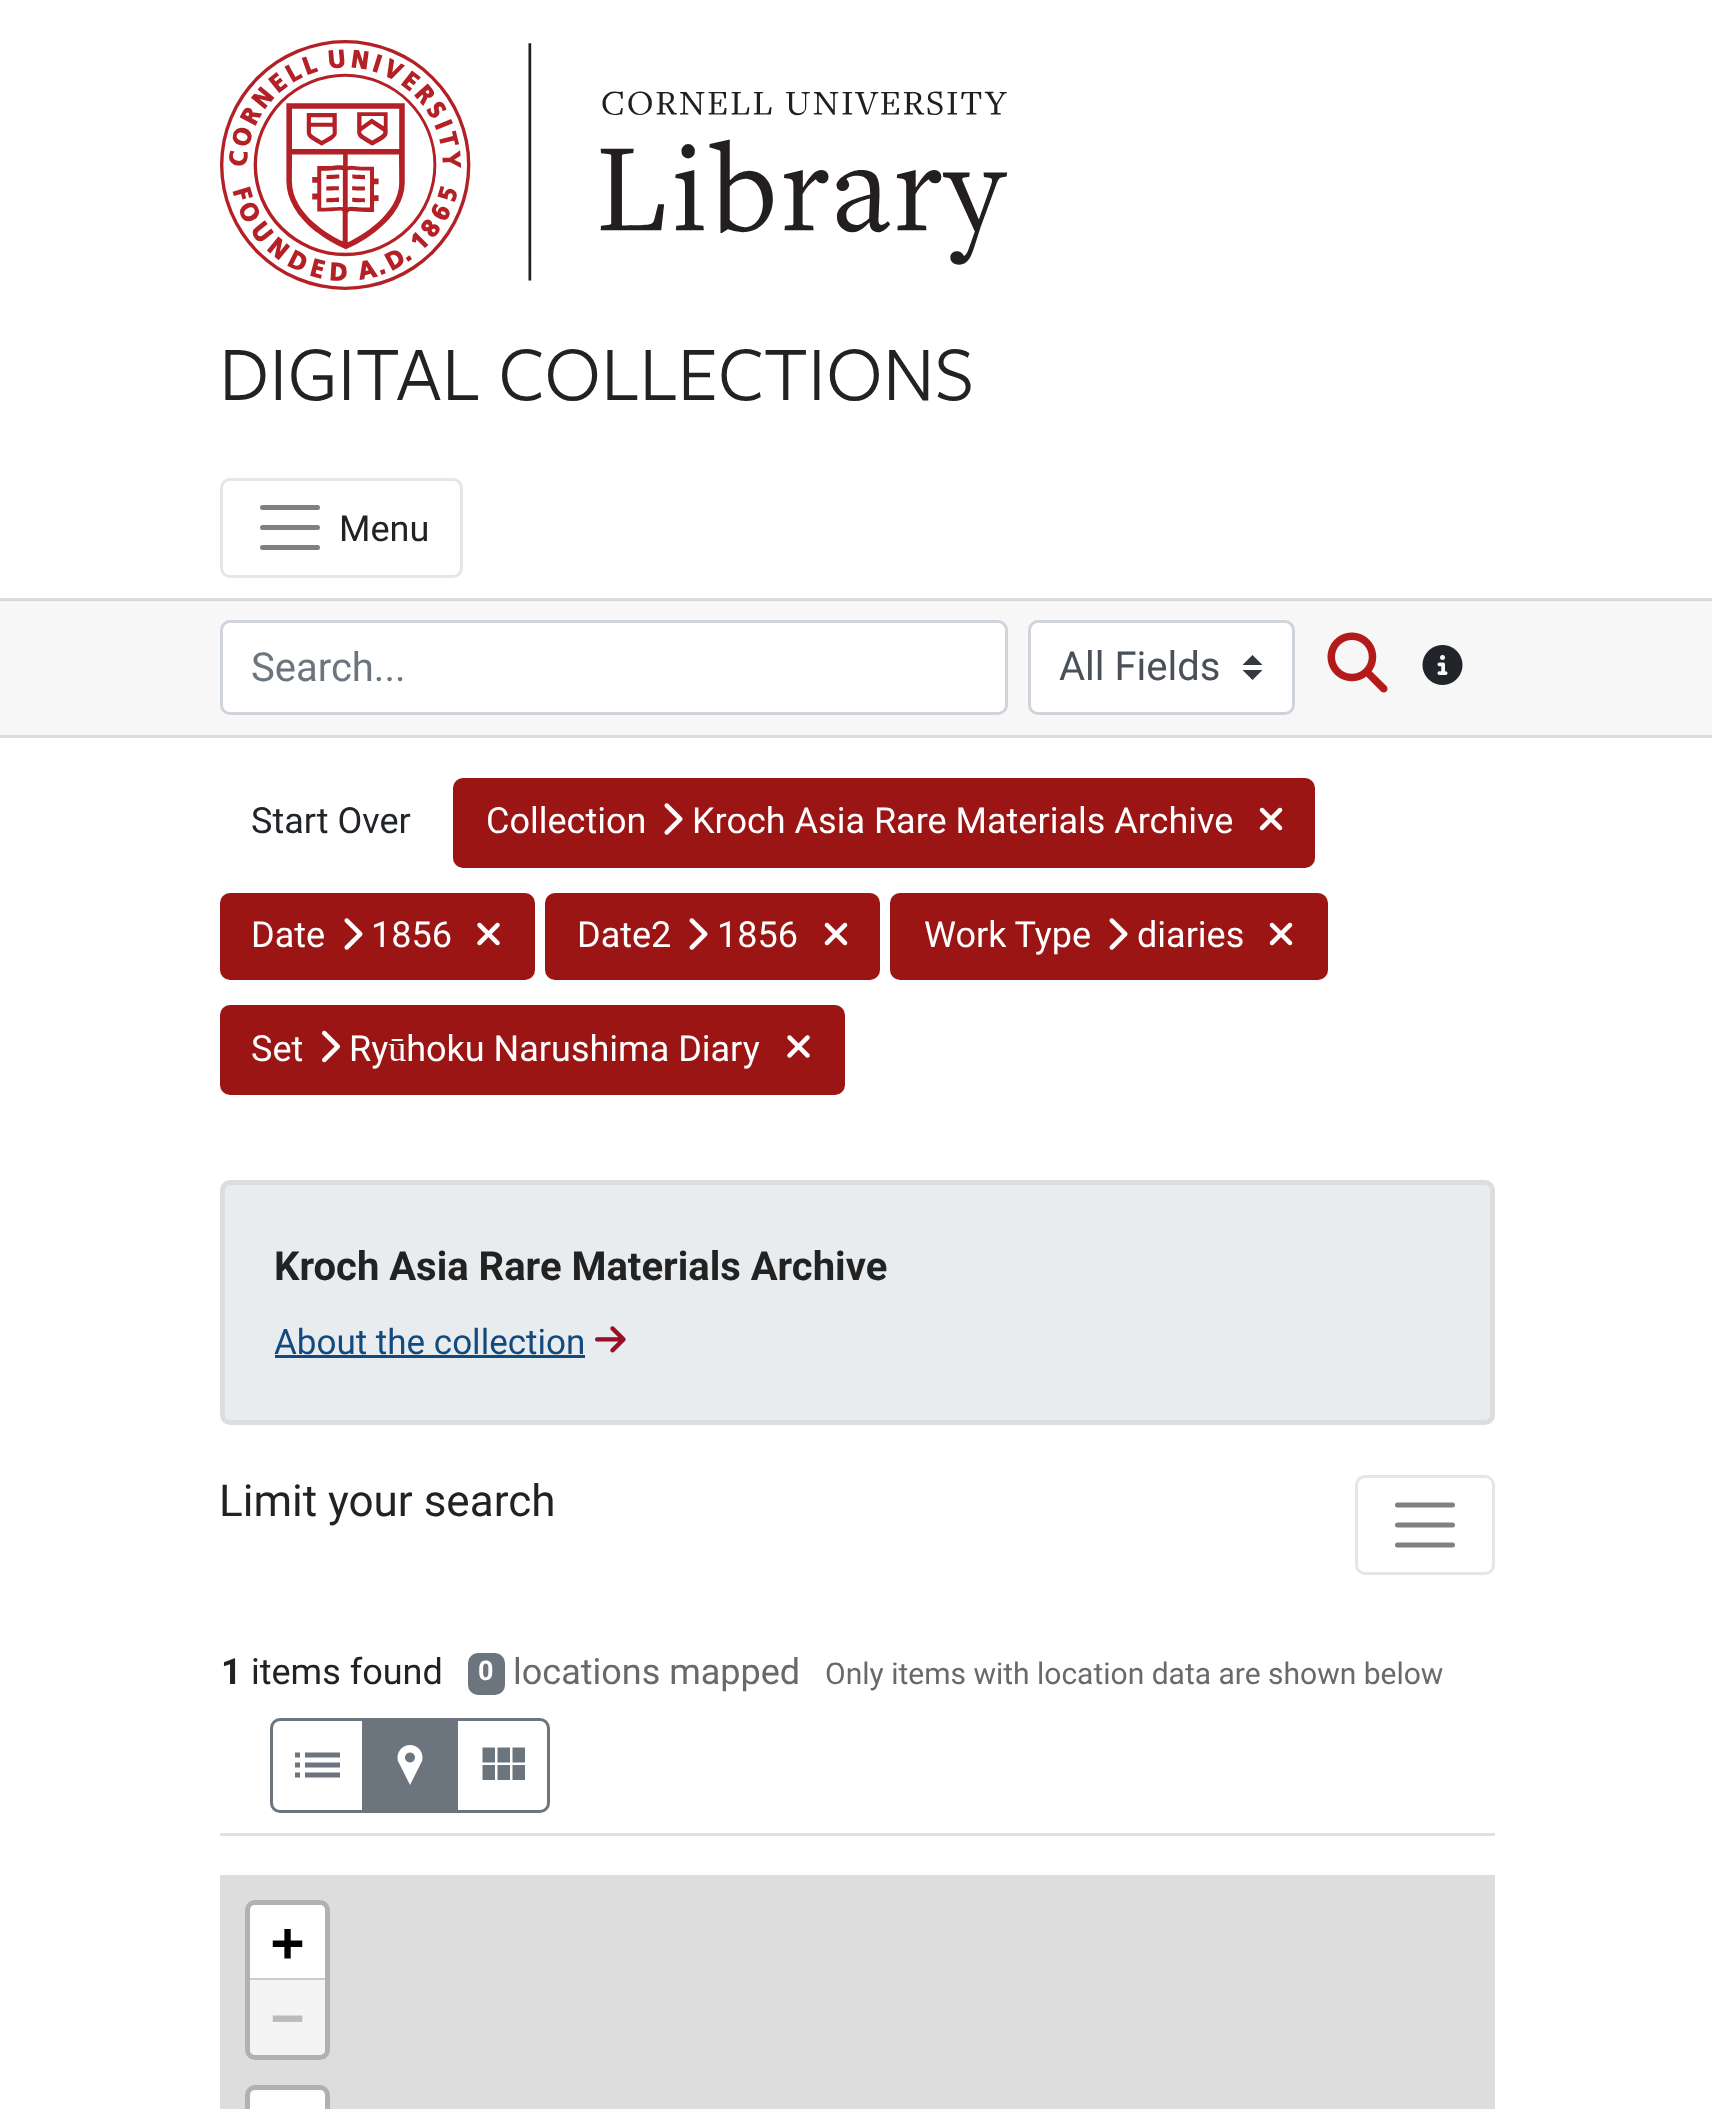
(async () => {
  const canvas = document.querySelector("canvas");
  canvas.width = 1712;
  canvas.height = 2109;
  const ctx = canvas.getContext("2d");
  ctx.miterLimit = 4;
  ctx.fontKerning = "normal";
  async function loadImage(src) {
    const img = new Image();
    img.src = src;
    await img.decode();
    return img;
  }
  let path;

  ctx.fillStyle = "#ffffff";
  ctx.fillRect(0, 0, 1712, 2109);
  ctx.fillStyle = "#f7f7f7";
  ctx.fillRect(0, 601, 1712, 134);
  ctx.drawImage(await loadImage("img/1.png"), 220, 40, 788, 250);
  ctx.fillStyle = "#dddddd";
  ctx.fillRect(0, 598, 1712, 2);
  ctx.fillStyle = "#d6d6d6";
  ctx.fillRect(0, 600, 1712, 1);
  ctx.beginPath();
  ctx.roundRect(221.5, 479.5, 240, 97, 8.5);
  ctx.strokeStyle = "#e6e6e6";
  ctx.lineWidth = 3;
  ctx.stroke();
  path = new Path2D("M262.5 507.5H317.5M262.5 527.5H317.5M262.5 547.5H317.5");
  ctx.strokeStyle = "#808080";
  ctx.lineWidth = 5;
  ctx.lineCap = "round";
  ctx.stroke(path);
  ctx.fillStyle = "#dddddd";
  ctx.fillRect(0, 735, 1712, 3);
  ctx.fillStyle = "#ffffff";
  ctx.beginPath();
  ctx.roundRect(221.5, 621.5, 785, 92, 8.5);
  ctx.fill();
  ctx.strokeStyle = "#ced4da";
  ctx.lineWidth = 3;
  ctx.stroke();
  ctx.beginPath();
  ctx.roundRect(1028, 620, 267, 95, 10);
  ctx.fill();
  ctx.fillStyle = "#343a40";
  path = new Path2D("M1252.5 655L1242.5 665H1262.5ZM1252.5 680L1242.5 670H1262.5Z");
  ctx.fill(path);
  ctx.beginPath();
  ctx.roundRect(1029.5, 621.5, 264, 92, 8.5);
  ctx.stroke();
  ctx.drawImage(await loadImage("img/2.png"), 1327, 632, 61, 61);
  ctx.drawImage(await loadImage("img/3.png"), 1422, 645, 41, 40);
  ctx.fillStyle = "#9c1515";
  ctx.beginPath();
  ctx.roundRect(454.5, 779.5, 859, 87, 8.5);
  ctx.fill();
  ctx.strokeStyle = "#9c1515";
  ctx.stroke();
  ctx.drawImage(await loadImage("img/4.png"), 664, 803, 19, 32);
  ctx.drawImage(await loadImage("img/5.png"), 1259, 807, 24, 24);
  ctx.beginPath();
  ctx.roundRect(221.5, 894.5, 312, 84, 8.5);
  ctx.fill();
  ctx.stroke();
  ctx.drawImage(await loadImage("img/4.png"), 344, 918, 19, 32);
  ctx.drawImage(await loadImage("img/6.png"), 477, 922, 23, 24);
  ctx.beginPath();
  ctx.roundRect(546.5, 894.5, 332, 84, 8.5);
  ctx.fill();
  ctx.stroke();
  ctx.drawImage(await loadImage("img/4.png"), 689, 918, 19, 32);
  ctx.drawImage(await loadImage("img/5.png"), 824, 922, 24, 24);
  ctx.beginPath();
  ctx.roundRect(891.5, 894.5, 435, 84, 8.5);
  ctx.fill();
  ctx.stroke();
  ctx.drawImage(await loadImage("img/4.png"), 1109, 918, 19, 32);
  ctx.drawImage(await loadImage("img/5.png"), 1269, 922, 24, 24);
  ctx.beginPath();
  ctx.roundRect(221.5, 1006.5, 622, 87, 8.5);
  ctx.fill();
  ctx.stroke();
  ctx.drawImage(await loadImage("img/7.png"), 322, 1030, 18, 33);
  ctx.drawImage(await loadImage("img/8.png"), 787, 1035, 23, 23);
  ctx.fillStyle = "#e9ecef";
  ctx.beginPath();
  ctx.roundRect(222.5, 1182.5, 1270, 240, 7.5);
  ctx.fill();
  ctx.strokeStyle = "#dddddd";
  ctx.lineWidth = 5;
  ctx.stroke();
  ctx.fillStyle = "#114a7f";
  ctx.fillRect(275, 1355, 310, 3);
  ctx.drawImage(await loadImage("img/9.png"), 595, 1326, 31, 27);
  ctx.beginPath();
  ctx.roundRect(1356.5, 1476.5, 137, 97, 8.5);
  ctx.strokeStyle = "#e6e6e6";
  ctx.lineWidth = 3;
  ctx.stroke();
  path = new Path2D("M1397.5 1505H1452.5M1397.5 1525H1452.5M1397.5 1545H1452.5");
  ctx.strokeStyle = "#808080";
  ctx.lineWidth = 5;
  ctx.stroke(path);
  ctx.fillStyle = "#dee2e6";
  ctx.fillRect(220, 1833, 1275, 3);
  ctx.fillStyle = "#6c757d";
  ctx.beginPath();
  ctx.roundRect(468, 1653, 37, 42, 10);
  ctx.fill();
  ctx.beginPath();
  ctx.roundRect(271.5, 1719.5, 92, 92, [8.5, 0, 0, 8.5]);
  ctx.strokeStyle = "#6c757d";
  ctx.lineWidth = 3;
  ctx.stroke();
  ctx.drawImage(await loadImage("img/10.png"), 295, 1752, 45, 26);
  ctx.fillRect(365, 1718, 90, 95);
  ctx.drawImage(await loadImage("img/11.png"), 397, 1745, 26, 40);
  ctx.beginPath();
  ctx.roundRect(456.5, 1719.5, 92, 92, [0, 8.5, 8.5, 0]);
  ctx.stroke();
  ctx.drawImage(await loadImage("img/12.png"), 482, 1747, 43, 33);
  ctx.fillStyle = "#dddddd";
  ctx.fillRect(220, 1875, 1275, 234);
  ctx.beginPath();
  ctx.roundRect(247.5, 1902.5, 80, 155, 7.5);
  ctx.strokeStyle = "#b1b1b1";
  ctx.lineWidth = 5;
  ctx.stroke();
  ctx.fillStyle = "#ffffff";
  ctx.beginPath();
  ctx.roundRect(250, 1905, 75, 75, [5, 5, 0, 0]);
  ctx.fill();
  ctx.fillStyle = "#cccccc";
  ctx.fillRect(250, 1978, 75, 2);
  ctx.fillStyle = "#f4f4f4";
  ctx.beginPath();
  ctx.roundRect(250, 1980, 75, 75, [0, 0, 5, 5]);
  ctx.fill();
  ctx.beginPath();
  ctx.roundRect(247.5, 2087.5, 80, 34, 7.5);
  ctx.stroke();
  ctx.fillStyle = "#ffffff";
  ctx.beginPath();
  ctx.roundRect(250, 2090, 75, 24, 5);
  ctx.fill();
  ctx.font = "80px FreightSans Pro";
  ctx.fillStyle = "#222222";
  ctx.fillText("DIGITAL COLLECTIONS", 219, 400);
  ctx.font = "36px Roboto";
  ctx.fillText("Menu", 339, 541);
  ctx.font = "40px Roboto";
  ctx.fillStyle = "#6c757d";
  ctx.fillText("Search...", 251, 681);
  ctx.fillStyle = "#495057";
  ctx.fillText("All Fields", 1059, 680);
  ctx.font = "36px Roboto";
  ctx.fillStyle = "#212529";
  ctx.fillText("Start Over", 251, 833);
  ctx.fillStyle = "#ffffff";
  for (const [text, x, y] of [
    ["Collection", 486, 833],
    ["Kroch Asia Rare Materials Archive", 692, 833],
    ["Date", 251, 947],
    ["1856", 371, 947],
    ["Date2", 577, 947],
    ["1856", 717, 947],
    ["Work Type", 924, 947],
    ["diaries", 1137, 947],
    ["Set", 251, 1061],
    ["Ryūhoku Narushima Diary", 349, 1061],
  ]) {
    ctx.fillText(text, x, y);
  }
  ctx.font = "bold 40px Roboto";
  ctx.fillStyle = "#222222";
  ctx.fillText("Kroch Asia Rare Materials Archive", 274, 1280);
  ctx.font = "35px Roboto";
  ctx.fillStyle = "#114a7f";
  ctx.fillText("About the collection", 274, 1354);
  ctx.font = "44px Roboto";
  ctx.fillStyle = "#222222";
  ctx.fillText("Limit your search", 219, 1516);
  ctx.font = "bold 36px Roboto";
  ctx.fillText("1", 221, 1684);
  ctx.font = "36px Roboto";
  ctx.fillText("items found", 251, 1684);
  ctx.font = "bold 27px Roboto";
  ctx.fillStyle = "#ffffff";
  ctx.fillText("0", 478, 1680);
  ctx.font = "36px Roboto";
  ctx.fillStyle = "#696969";
  ctx.fillText("locations mapped", 513, 1684);
  ctx.font = "30px Roboto";
  ctx.fillText("Only items with location data are shown below", 825, 1684);
  ctx.font = "bold 55px DejaVu Sans Mono";
  ctx.fillStyle = "#000000";
  ctx.fillText("+", 271, 1961);
  ctx.fillStyle = "#bbbbbb";
  ctx.fillText("−", 271, 2036);
})();
